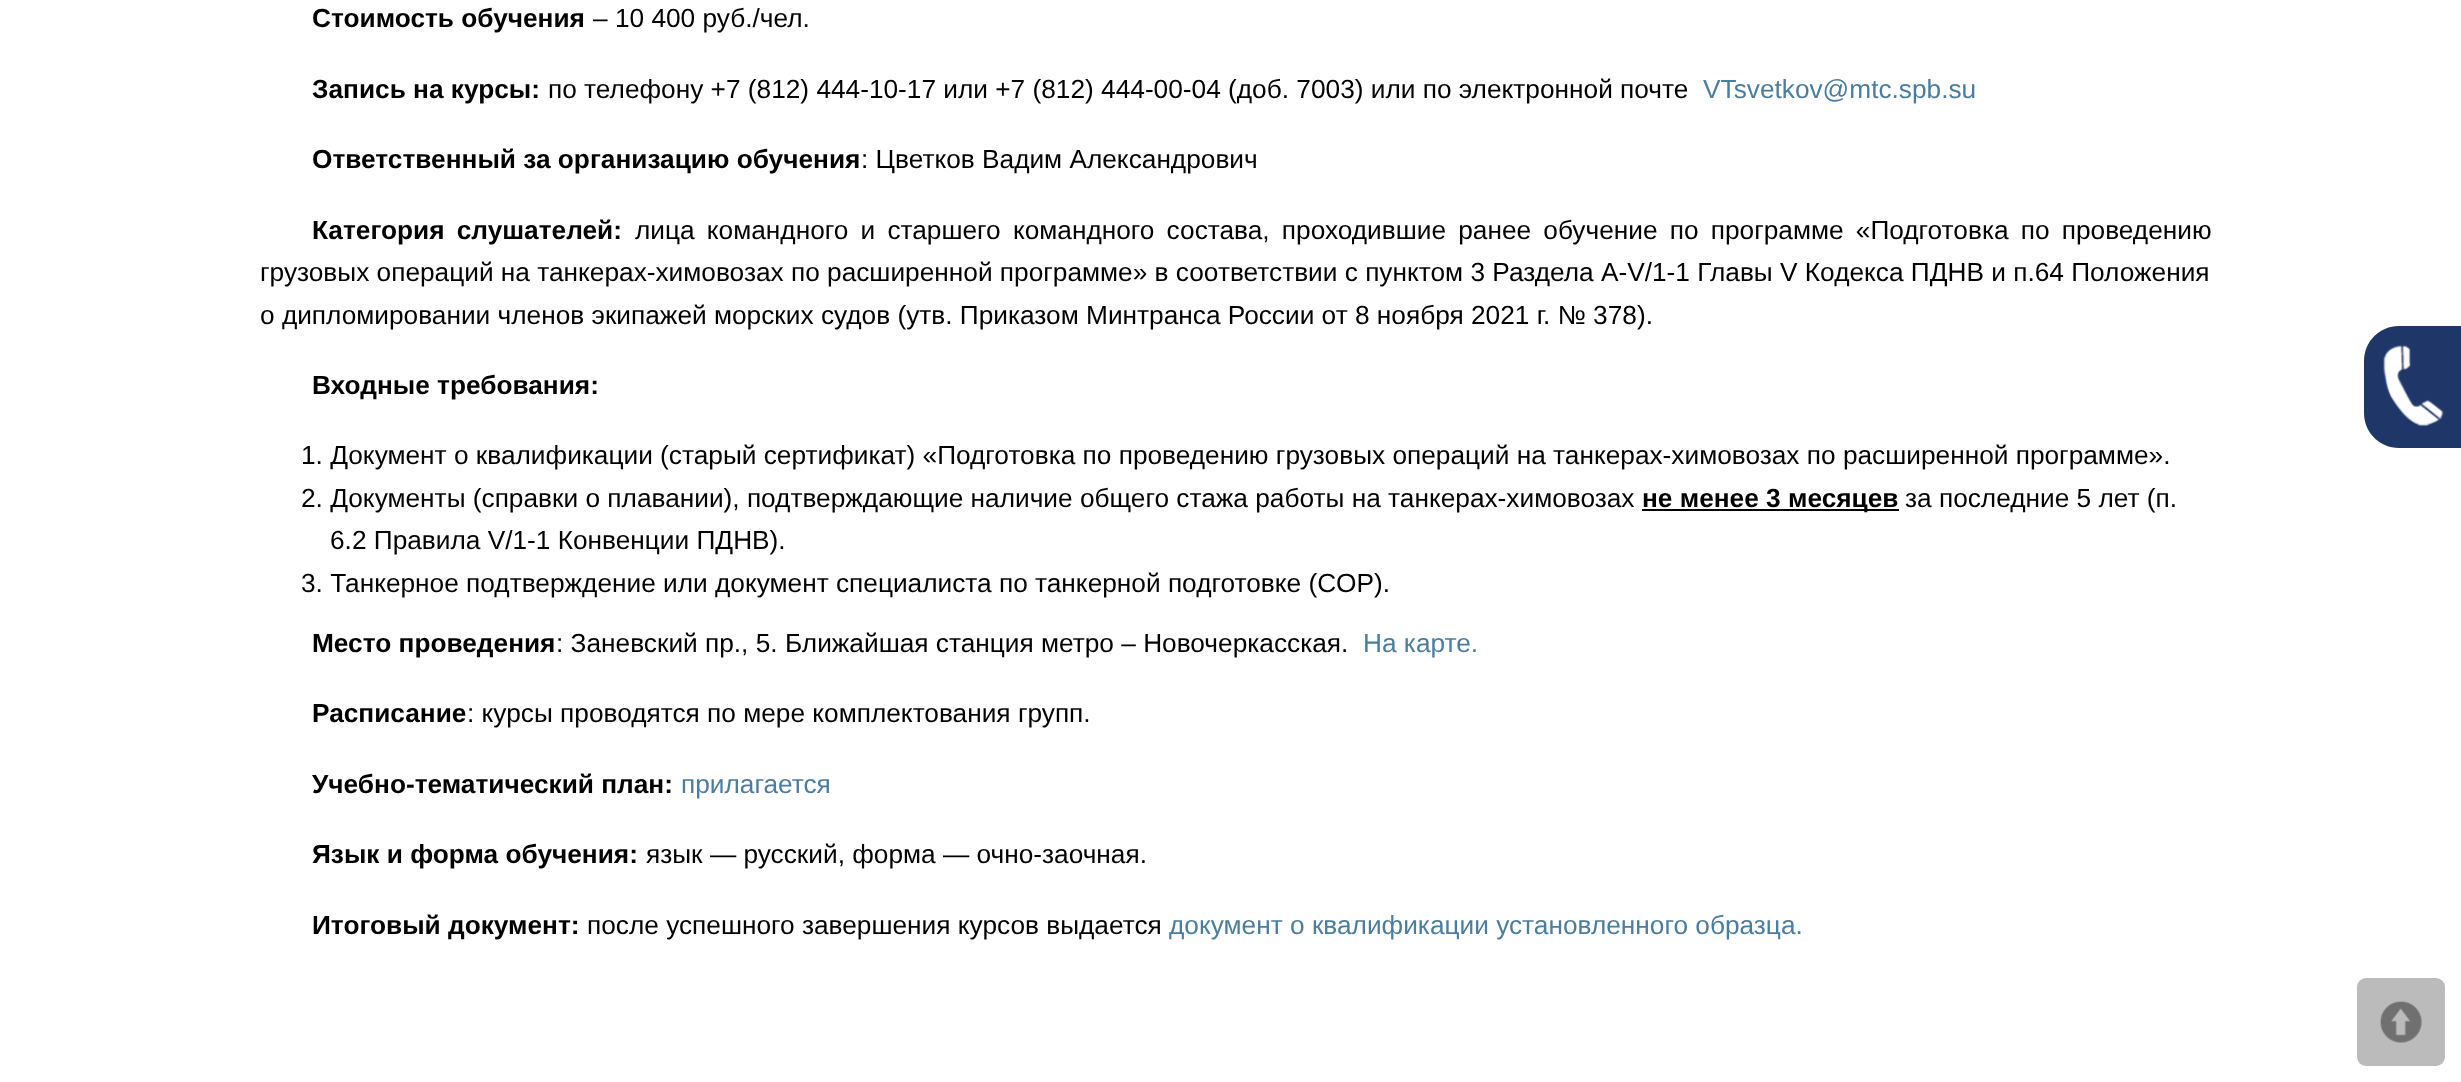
(async () => {
  const canvas = document.querySelector("canvas");
  canvas.width = 2461;
  canvas.height = 1082;
  const ctx = canvas.getContext("2d");
  ctx.miterLimit = 4;
  ctx.fontKerning = "normal";
  async function loadImage(src) {
    const img = new Image();
    img.src = src;
    await img.decode();
    return img;
  }
  let path;

  ctx.fillStyle = "#ffffff";
  ctx.fillRect(0, 0, 2461, 1082);
  ctx.fillStyle = "#000000";
  ctx.fillRect(1642, 509, 257, 2);
  ctx.fillStyle = "#1f3668";
  path = new Path2D("M2399 326H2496V448H2399C2379.5 448 2364 432.5 2364 413V361C2364 341.5 2379.5 326 2399 326Z");
  ctx.fill(path);
  ctx.drawImage(await loadImage("img/1.png"), 2383, 345, 61, 81);
  ctx.fillStyle = "#bbbbbb";
  ctx.beginPath();
  ctx.roundRect(2357, 978, 88, 88, 9);
  ctx.fill();
  ctx.drawImage(await loadImage("img/2.png"), 2380, 1001, 42, 42);
  ctx.font = "bold 26.25px Liberation Sans";
  ctx.fillStyle = "#000000";
  ctx.fillText("Стоимость обучения", 312, 27);
  ctx.font = "26.25px Liberation Sans";
  ctx.fillText("– 10 400 руб./чел.", 593, 27);
  ctx.font = "bold 26.25px Liberation Sans";
  ctx.fillText("Запись на курсы:", 312, 98);
  ctx.font = "26.25px Liberation Sans";
  ctx.fillText("по телефону +7 (812) 444-10-17 или +7 (812) 444-00-04 (доб. 7003) или по электронной почте", 548, 98);
  ctx.fillStyle = "#4b7d9e";
  ctx.fillText("VTsvetkov@mtc.spb.su", 1703, 98);
  ctx.font = "bold 26.25px Liberation Sans";
  ctx.fillStyle = "#000000";
  ctx.fillText("Ответственный за организацию обучения", 312, 168);
  ctx.font = "26.25px Liberation Sans";
  ctx.fillText(": Цветков Вадим Александрович", 861, 168);
  ctx.wordSpacing = "4.9px";
  ctx.font = "bold 26.25px Liberation Sans";
  ctx.fillText("Категория слушателей:", 312, 239);
  ctx.font = "26.25px Liberation Sans";
  ctx.fillText("лица командного и старшего командного состава, проходившие ранее обучение по программе «Подготовка по проведению", 635, 239);
  ctx.wordSpacing = "0px";
  ctx.fillText("грузовых операций на танкерах-химовозах по расширенной программе» в соответствии с пунктом 3 Раздела А-V/1-1 Главы V Кодекса ПДНВ и п.64 Положения", 260, 281);
  ctx.fillText("о дипломировании членов экипажей морских судов (утв. Приказом Минтранса России от 8 ноября 2021 г. № 378).", 260, 324);
  ctx.font = "bold 26.25px Liberation Sans";
  ctx.fillText("Входные требования:", 312, 394);
  ctx.font = "26.25px Liberation Sans";
  ctx.fillText("1. Документ о квалификации (старый сертификат) «Подготовка по проведению грузовых операций на танкерах-химовозах по расширенной программе».", 301, 464);
  ctx.fillText("2. Документы (справки о плавании), подтверждающие наличие общего стажа работы на танкерах-химовозах", 301, 507);
  ctx.font = "bold 26.25px Liberation Sans";
  ctx.fillText("не менее 3 месяцев", 1642, 507);
  ctx.font = "26.25px Liberation Sans";
  for (const [text, x, y] of [
    ["за последние 5 лет (п.", 1905, 507],
    ["6.2 Правила V/1-1 Конвенции ПДНВ).", 330, 549],
    ["3. Танкерное подтверждение или документ специалиста по танкерной подготовке (COP).", 301, 592],
  ]) {
    ctx.fillText(text, x, y);
  }
  ctx.font = "bold 26.25px Liberation Sans";
  ctx.fillText("Место проведения", 312, 652);
  ctx.font = "26.25px Liberation Sans";
  ctx.fillText(": Заневский пр., 5. Ближайшая станция метро – Новочеркасская.", 556, 652);
  ctx.fillStyle = "#4b7d9e";
  ctx.fillText("На карте.", 1363, 652);
  ctx.font = "bold 26.25px Liberation Sans";
  ctx.fillStyle = "#000000";
  ctx.fillText("Расписание", 312, 722);
  ctx.font = "26.25px Liberation Sans";
  ctx.fillText(": курсы проводятся по мере комплектования групп.", 467, 722);
  ctx.font = "bold 26.25px Liberation Sans";
  ctx.fillText("Учебно-тематический план:", 312, 793);
  ctx.font = "26.25px Liberation Sans";
  ctx.fillStyle = "#4b7d9e";
  ctx.fillText("прилагается", 681, 793);
  ctx.font = "bold 26.25px Liberation Sans";
  ctx.fillStyle = "#000000";
  ctx.fillText("Язык и форма обучения:", 312, 863);
  ctx.font = "26.25px Liberation Sans";
  ctx.fillText("язык — русский, форма — очно-заочная.", 646, 863);
  ctx.font = "bold 26.25px Liberation Sans";
  ctx.fillText("Итоговый документ:", 312, 934);
  ctx.font = "26.25px Liberation Sans";
  ctx.fillText("после успешного завершения курсов выдается", 587, 934);
  ctx.fillStyle = "#4b7d9e";
  ctx.fillText("документ о квалификации установленного образца.", 1169, 934);
})();
